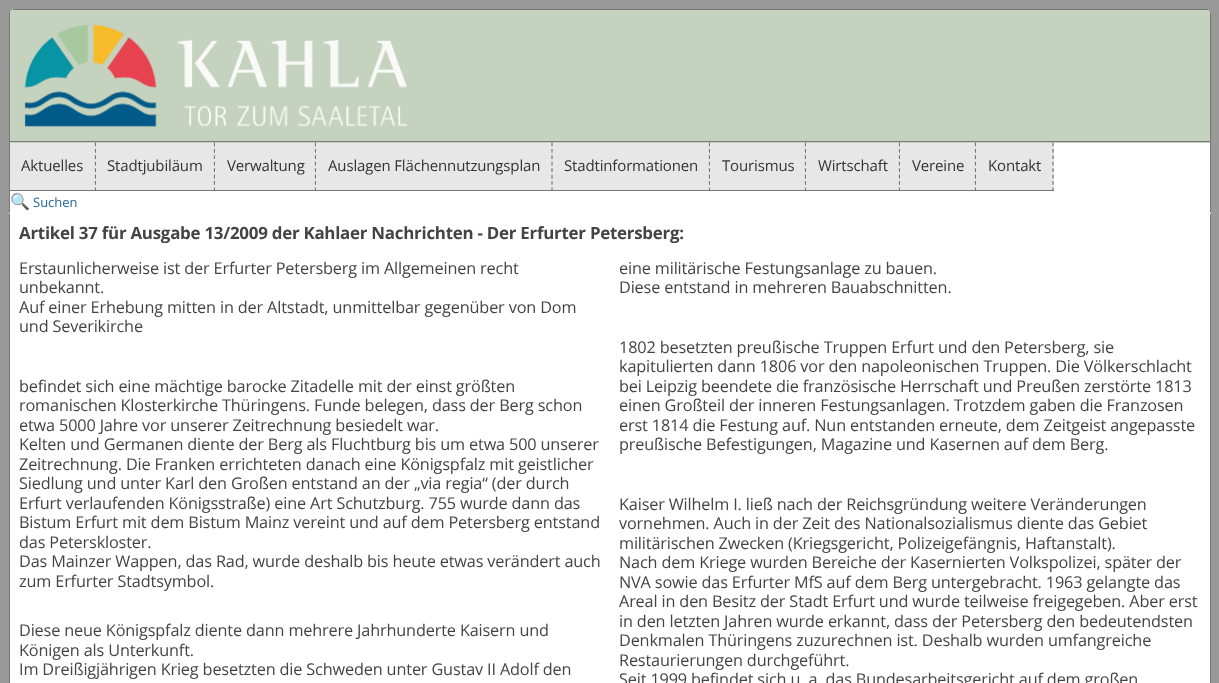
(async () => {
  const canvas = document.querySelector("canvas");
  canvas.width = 1219;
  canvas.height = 683;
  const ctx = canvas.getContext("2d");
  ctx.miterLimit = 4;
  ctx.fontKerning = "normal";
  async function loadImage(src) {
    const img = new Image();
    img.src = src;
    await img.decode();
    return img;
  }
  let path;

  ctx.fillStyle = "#999999";
  ctx.fillRect(0, 0, 1219, 683);
  ctx.fillStyle = "#ffffff";
  ctx.beginPath();
  ctx.roundRect(9, 9, 1202, 205, [5, 5, 0, 0]);
  ctx.fill();
  ctx.fillStyle = "#777777";
  path = new Path2D("M1211 214V14C1211 11 1209 9 1206 9C1208 9 1210 11 1210 14V212Z");
  ctx.fill(path);
  ctx.fillStyle = "#ffffff";
  path = new Path2D("M10 212H1210L1211 214H9Z");
  ctx.fill(path);
  ctx.fillStyle = "#777777";
  path = new Path2D("M14 9C12 9 10 11 10 14V212L9 214V14C9 11 11 9 14 9Z");
  ctx.fill(path);
  ctx.fillStyle = "#c5d2be";
  ctx.beginPath();
  ctx.roundRect(10, 9, 1200, 134, [5, 5, 0, 0]);
  ctx.fill();
  ctx.drawImage(await loadImage("img/1.png"), 10, 10, 397, 117);
  for (const [x, y, w, h, color] of [
    [13, 9, 1195, 1, "#777777"],
    [10, 141, 1200, 1, "#777777"],
    [10, 143, 86, 47, "#e7e7e7"],
  ]) {
    ctx.fillStyle = color;
    ctx.fillRect(x, y, w, h);
  }
  path = new Path2D("M95.5 142.5V191");
  ctx.strokeStyle = "#777777";
  ctx.lineWidth = 1.2;
  ctx.setLineDash([3.75, 2.68]);
  ctx.stroke(path);
  ctx.fillStyle = "#777777";
  ctx.fillRect(10, 190, 86, 1);
  ctx.fillStyle = "#e7e7e7";
  ctx.fillRect(96, 143, 119, 47);
  path = new Path2D("M214.5 142.5V191");
  ctx.stroke(path);
  ctx.fillStyle = "#777777";
  ctx.fillRect(96, 190, 119, 1);
  ctx.fillStyle = "#e7e7e7";
  ctx.fillRect(215, 143, 101, 47);
  path = new Path2D("M315.5 142.5V191");
  ctx.stroke(path);
  ctx.fillStyle = "#777777";
  ctx.fillRect(215, 190, 101, 1);
  ctx.fillStyle = "#e7e7e7";
  ctx.fillRect(316, 143, 394, 47);
  path = new Path2D("M552 142.5V191");
  ctx.stroke(path);
  ctx.fillStyle = "#777777";
  ctx.fillRect(316, 190, 237, 1);
  path = new Path2D("M709.5 142.5V191");
  ctx.stroke(path);
  ctx.fillRect(553, 190, 157, 1);
  ctx.fillStyle = "#e7e7e7";
  ctx.fillRect(710, 143, 96, 47);
  path = new Path2D("M805.5 142.5V191");
  ctx.stroke(path);
  ctx.fillStyle = "#777777";
  ctx.fillRect(710, 190, 96, 1);
  ctx.fillStyle = "#e7e7e7";
  ctx.fillRect(806, 143, 94, 47);
  path = new Path2D("M899.5 142.5V191");
  ctx.stroke(path);
  ctx.fillStyle = "#777777";
  ctx.fillRect(806, 190, 94, 1);
  ctx.fillStyle = "#e7e7e7";
  ctx.fillRect(900, 143, 76, 47);
  path = new Path2D("M975.5 142.5V191");
  ctx.stroke(path);
  ctx.fillStyle = "#777777";
  ctx.fillRect(900, 190, 76, 1);
  ctx.fillStyle = "#e7e7e7";
  ctx.fillRect(976, 143, 78, 47);
  path = new Path2D("M1053 142.5V191");
  ctx.stroke(path);
  for (const [x, y, w, h, color] of [
    [976, 190, 78, 1, "#777777"],
    [10, 214, 1200, 469, "#ffffff"],
    [1210, 214, 1, 469, "#777777"],
    [9, 214, 1, 469, "#777777"],
  ]) {
    ctx.fillStyle = color;
    ctx.fillRect(x, y, w, h);
  }
  ctx.letterSpacing = "-0.15px";
  ctx.font = "15px Open Sans";
  ctx.fillStyle = "#333333";
  for (const [text, x, y] of [
    ["Aktuelles", 21, 171],
    ["Stadtjubiläum", 107, 171],
    ["Verwaltung", 227, 171],
    ["Auslagen Flächennutzungsplan", 328, 171],
    ["Stadtinformationen", 564, 171],
    ["Tourismus", 722, 171],
    ["Wirtschaft", 818, 171],
    ["Vereine", 912, 171],
    ["Kontakt", 988, 171],
  ]) {
    ctx.fillText(text, x, y);
  }
  ctx.font = "16px Noto Color Emoji";
  ctx.fillStyle = "#226699";
  ctx.fillText("🔍", 10, 207);
  ctx.letterSpacing = "0px";
  ctx.font = "13px Open Sans";
  ctx.fillText("Suchen", 33, 207);
  ctx.letterSpacing = "-0.25px";
  ctx.font = "bold 16.9px Open Sans";
  ctx.fillStyle = "#444444";
  ctx.fillText("Artikel 37 für Ausgabe 13/2009 der Kahlaer Nachrichten - Der Erfurter Petersberg:", 19, 239);
  ctx.letterSpacing = "-0.15px";
  ctx.font = "16.25px Open Sans";
  for (const [text, x, y] of [
    ["Erstaunlicherweise ist der Erfurter Petersberg im Allgemeinen recht", 19, 274],
    ["unbekannt.", 19, 293],
    ["Auf einer Erhebung mitten in der Altstadt, unmittelbar gegenüber von Dom", 19, 313],
    ["und Severikirche", 19, 332],
    ["befindet sich eine mächtige barocke Zitadelle mit der einst größten", 19, 392],
    ["romanischen Klosterkirche Thüringens. Funde belegen, dass der Berg schon", 19, 411],
    ["etwa 5000 Jahre vor unserer Zeitrechnung besiedelt war.", 19, 431],
    ["Kelten und Germanen diente der Berg als Fluchtburg bis um etwa 500 unserer", 19, 450],
    ["Zeitrechnung. Die Franken errichteten danach eine Königspfalz mit geistlicher", 19, 470],
    ["Siedlung und unter Karl den Großen entstand an der „via regia“ (der durch", 19, 489],
    ["Erfurt verlaufenden Königsstraße) eine Art Schutzburg. 755 wurde dann das", 19, 509],
    ["Bistum Erfurt mit dem Bistum Mainz vereint und auf dem Petersberg entstand", 19, 528],
    ["das Peterskloster.", 19, 548],
    ["Das Mainzer Wappen, das Rad, wurde deshalb bis heute etwas verändert auch", 19, 567],
    ["zum Erfurter Stadtsymbol.", 19, 587],
    ["Diese neue Königspfalz diente dann mehrere Jahrhunderte Kaisern und", 19, 636],
    ["Königen als Unterkunft.", 19, 656],
    ["Im Dreißigjährigen Krieg besetzten die Schweden unter Gustav II Adolf den", 19, 675],
    ["eine militärische Festungsanlage zu bauen.", 619, 274],
    ["Diese entstand in mehreren Bauabschnitten.", 619, 293],
    ["1802 besetzten preußische Truppen Erfurt und den Petersberg, sie", 619, 353],
    ["kapitulierten dann 1806 vor den napoleonischen Truppen. Die Völkerschlacht", 619, 372],
    ["bei Leipzig beendete die französische Herrschaft und Preußen zerstörte 1813", 619, 392],
    ["einen Großteil der inneren Festungsanlagen. Trotzdem gaben die Franzosen", 619, 411],
    ["erst 1814 die Festung auf. Nun entstanden erneute, dem Zeitgeist angepasste", 619, 431],
    ["preußische Befestigungen, Magazine und Kasernen auf dem Berg.", 619, 450],
    ["Kaiser Wilhelm I. ließ nach der Reichsgründung weitere Veränderungen", 619, 510],
    ["vornehmen. Auch in der Zeit des Nationalsozialismus diente das Gebiet", 619, 529],
    ["militärischen Zwecken (Kriegsgericht, Polizeigefängnis, Haftanstalt).", 619, 549],
    ["Nach dem Kriege wurden Bereiche der Kasernierten Volkspolizei, später der", 619, 568],
    ["NVA sowie das Erfurter MfS auf dem Berg untergebracht. 1963 gelangte das", 619, 588],
    ["Areal in den Besitz der Stadt Erfurt und wurde teilweise freigegeben. Aber erst", 619, 607],
    ["in den letzten Jahren wurde erkannt, dass der Petersberg den bedeutendsten", 619, 627],
    ["Denkmalen Thüringens zuzurechnen ist. Deshalb wurden umfangreiche", 619, 646],
    ["Restaurierungen durchgeführt.", 619, 666],
    ["Seit 1999 befindet sich u. a. das Bundesarbeitsgericht auf dem großen", 619, 685],
  ]) {
    ctx.fillText(text, x, y);
  }
})();
